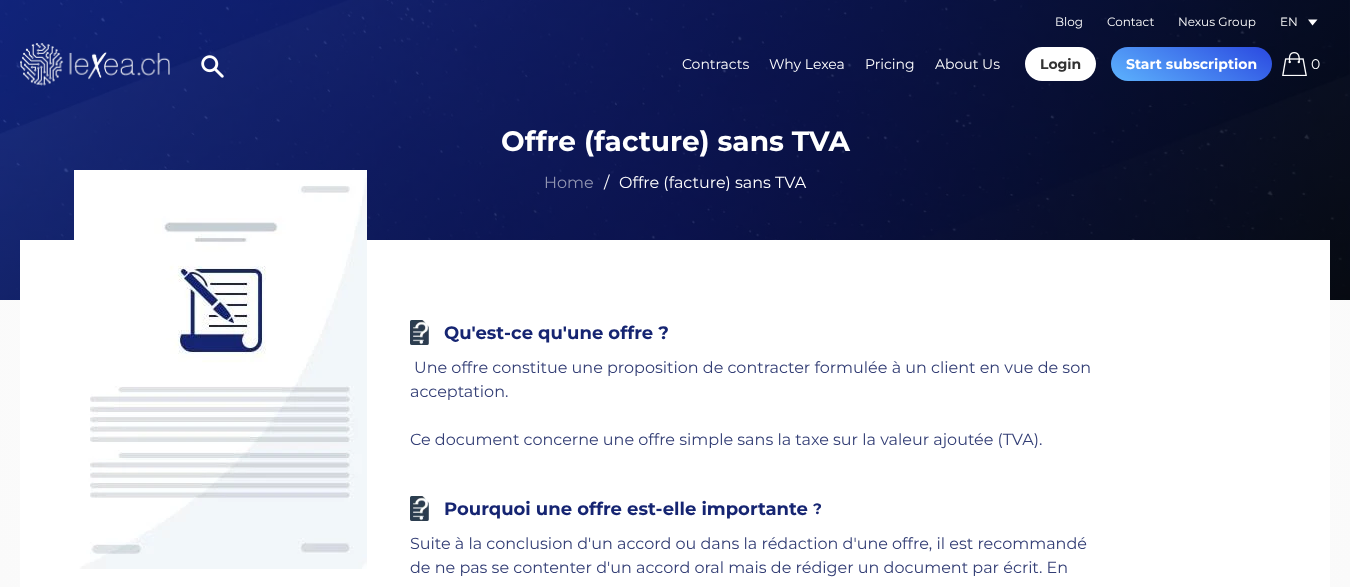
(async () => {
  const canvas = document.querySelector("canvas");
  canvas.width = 1350;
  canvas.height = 587;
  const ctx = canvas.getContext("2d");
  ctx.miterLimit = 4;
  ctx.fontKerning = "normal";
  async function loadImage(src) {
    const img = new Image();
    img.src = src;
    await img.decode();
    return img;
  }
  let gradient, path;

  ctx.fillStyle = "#ffffff";
  ctx.fillRect(0, 0, 1350, 587);
  ctx.drawImage(await loadImage("img/4.png"), 0, 0, 1350, 300);
  path = new Path2D("M1312.5 25.5L1317.5 19.5H1308Z");
  ctx.fill(path, "evenodd");
  ctx.drawImage(await loadImage("img/1.png"), 20, 43, 150, 43);
  ctx.drawImage(await loadImage("img/2.png"), 201, 55, 23, 23);
  ctx.beginPath();
  ctx.roundRect(1025, 47, 71, 34, 17);
  ctx.fill();
  gradient = ctx.createLinearGradient(1219, 16, 1164, 112);
  gradient.addColorStop(0, "#2a48e0");
  gradient.addColorStop(1, "#5db3fd");
  ctx.fillStyle = gradient;
  ctx.beginPath();
  ctx.roundRect(1111, 47, 161, 34, 17);
  ctx.fill();
  ctx.drawImage(await loadImage("img/3.png"), 1282, 52, 25, 24);
  gradient = ctx.createRadialGradient(675, 300, 0, 675, 300, 1178);
  gradient.addColorStop(0, "#ffffff");
  gradient.addColorStop(1, "#f7f7f7");
  ctx.fillStyle = gradient;
  ctx.fillRect(0, 300, 1350, 287);
  ctx.fillStyle = "#ffffff";
  ctx.fillRect(20, 240, 1310, 347);
  ctx.drawImage(await loadImage("img/5.png"), 74, 170, 293, 399);
  ctx.drawImage(await loadImage("img/6.png"), 410, 320, 19, 25);
  ctx.drawImage(await loadImage("img/6.png"), 410, 496, 19, 25);
  ctx.font = "12px Montserrat";
  for (const [text, x, y] of [
    ["Blog", 1055, 26],
    ["Contact", 1107, 26],
    ["Nexus Group", 1178, 26],
    ["EN", 1280, 26],
  ]) {
    ctx.fillText(text, x, y);
  }
  ctx.font = "14px Montserrat";
  for (const [text, x, y] of [
    ["Contracts", 682, 69],
    ["Why Lexea", 769, 69],
    ["Pricing", 865, 69],
    ["About Us", 935, 69],
  ]) {
    ctx.fillText(text, x, y);
  }
  ctx.font = "bold 14px Montserrat";
  ctx.fillStyle = "#333333";
  ctx.fillText("Login", 1040, 69);
  ctx.fillStyle = "#ffffff";
  ctx.fillText("Start subscription", 1126, 69);
  ctx.font = "14px Montserrat";
  ctx.fillText("0", 1311, 69);
  ctx.font = "bold 28px Montserrat";
  ctx.fillText("Offre (facture) sans TVA", 501, 151);
  ctx.font = "16px Montserrat";
  ctx.fillStyle = "#9094b1";
  ctx.fillText("Home", 544, 188);
  ctx.fillStyle = "#ffffff";
  ctx.fillText("/", 604, 188);
  ctx.fillText("Offre (facture) sans TVA", 619, 188);
  ctx.font = "bold 18px Montserrat";
  ctx.fillStyle = "#162572";
  ctx.fillText("Qu'est-ce qu'une offre ?", 444, 339);
  ctx.font = "16px Montserrat";
  ctx.fillStyle = "#333e75";
  for (const [text, x, y] of [
    ["Une offre constitue une proposition de contracter formulée à un client en vue de son", 414, 373],
    ["acceptation.", 410, 397],
    ["Ce document concerne une offre simple sans la taxe sur la valeur ajoutée (TVA).", 410, 445],
  ]) {
    ctx.fillText(text, x, y);
  }
  ctx.font = "bold 18px Montserrat";
  ctx.fillStyle = "#162572";
  ctx.fillText("Pourquoi une offre est-elle importante", 444, 515);
  ctx.font = "bold 15px Montserrat";
  ctx.fillText("?", 813, 514);
  ctx.font = "16px Montserrat";
  ctx.fillStyle = "#333e75";
  ctx.fillText("Suite à la conclusion d'un accord ou dans la rédaction d'une offre, il est recommandé", 410, 549);
  ctx.fillText("de ne pas se contenter d'un accord oral mais de rédiger un document par écrit. En", 410, 573);
})();
